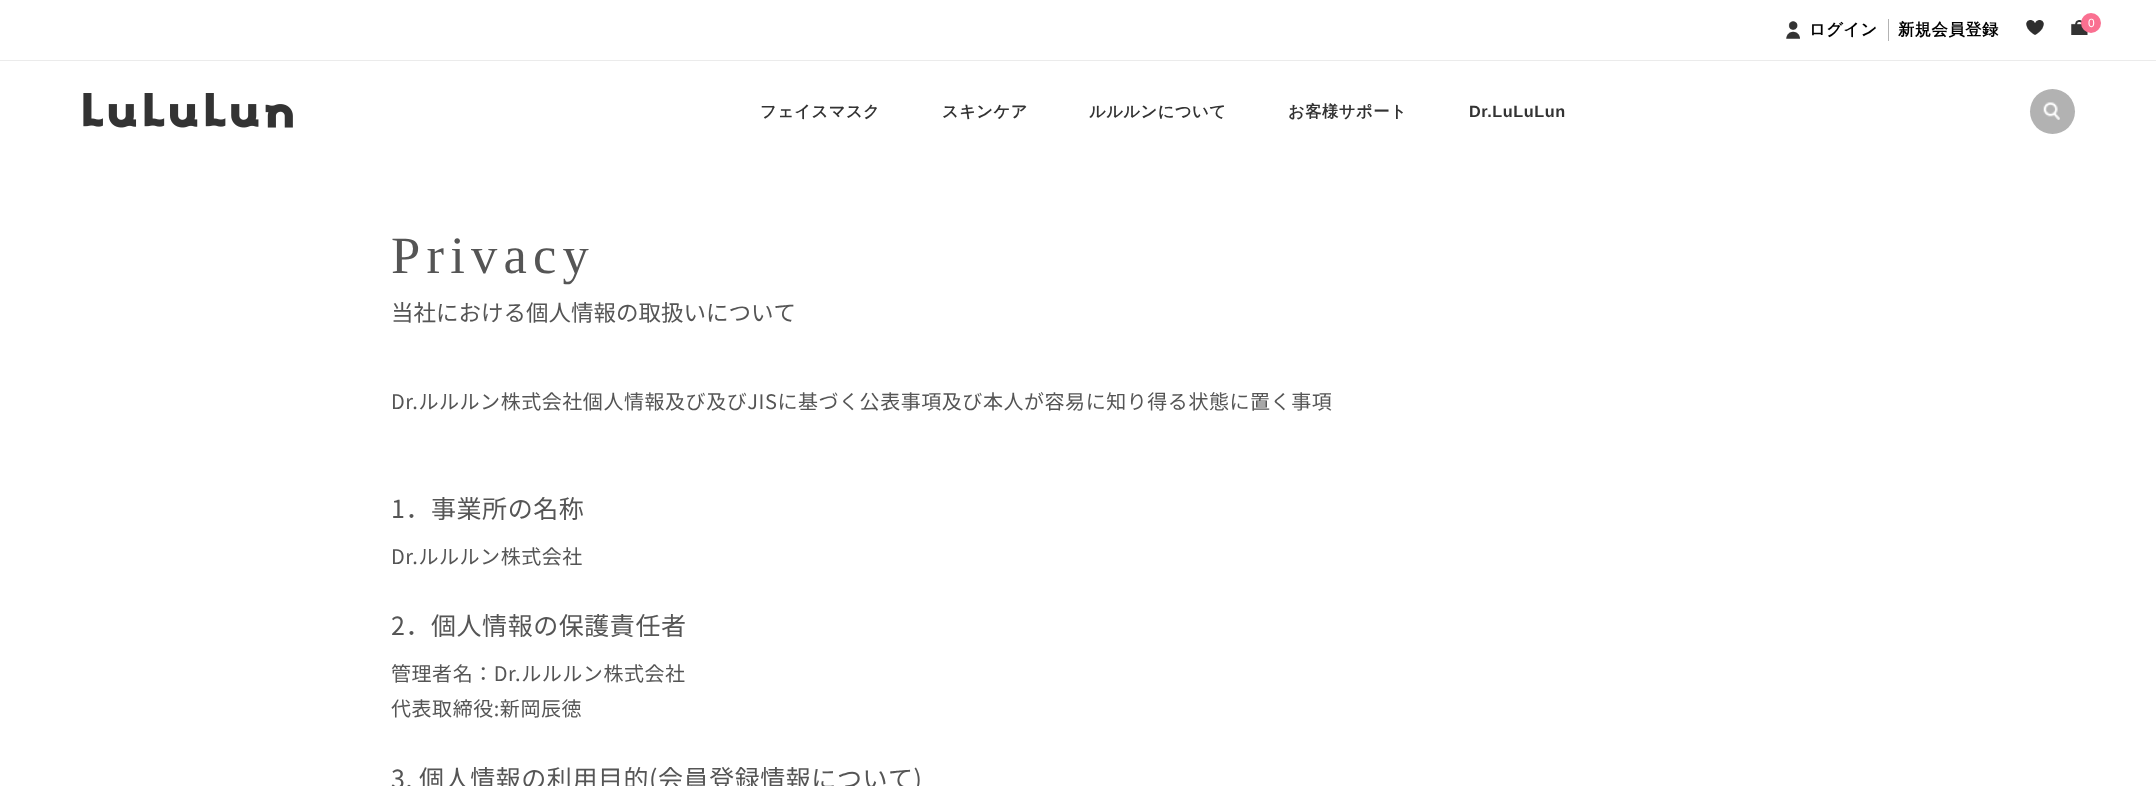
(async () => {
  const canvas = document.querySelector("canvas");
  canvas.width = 2156;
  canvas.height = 786;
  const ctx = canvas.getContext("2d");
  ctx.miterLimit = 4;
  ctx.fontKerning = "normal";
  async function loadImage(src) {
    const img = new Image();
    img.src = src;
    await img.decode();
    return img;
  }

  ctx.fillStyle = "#ffffff";
  ctx.fillRect(0, 0, 2156, 786);
  ctx.drawImage(await loadImage("img/1.png"), 1786, 21, 14, 18);
  ctx.fillStyle = "#b3b3b3";
  ctx.fillRect(1888, 19, 1, 22);
  ctx.drawImage(await loadImage("img/2.png"), 2026, 20, 18, 15);
  ctx.drawImage(await loadImage("img/3.png"), 2071, 20, 17, 15);
  ctx.fillStyle = "#fa7091";
  ctx.beginPath();
  ctx.arc(2091, 23, 10, 0, Math.PI * 2);
  ctx.fill();
  ctx.fillStyle = "#ebebeb";
  ctx.fillRect(0, 60, 2156, 1);
  ctx.drawImage(await loadImage("img/4.png"), 83, 93, 210, 35);
  ctx.fillStyle = "#b2b2b2";
  ctx.beginPath();
  ctx.arc(2052.5, 111.5, 22.5, 0, Math.PI * 2);
  ctx.fill();
  ctx.drawImage(await loadImage("img/5.png"), 2043, 102, 17, 18);
  ctx.letterSpacing = "0.55px";
  ctx.font = "bold 16.25px WenQuanYi Zen Hei";
  ctx.fillStyle = "#000000";
  ctx.fillText("ログイン", 1809, 35);
  ctx.fillText("新規会員登録", 1898, 35);
  ctx.font = "12px Liberation Sans";
  ctx.fillStyle = "#ffffff";
  ctx.fillText("0", 2088, 27);
  ctx.font = "bold 16.25px WenQuanYi Zen Hei";
  ctx.fillStyle = "#333333";
  for (const [text, x, y] of [
    ["フェイスマスク", 760, 117],
    ["スキンケア", 942, 117],
    ["ルルルンについて", 1089, 117],
    ["お客様サポート", 1288, 117],
  ]) {
    ctx.fillText(text, x, y);
  }
  ctx.font = "bold 16.25px Liberation Sans";
  ctx.fillText("Dr.LuLuLun", 1469, 117);
  ctx.letterSpacing = "6.25px";
  ctx.font = "52.5px Liberation Serif";
  ctx.fillStyle = "#555555";
  ctx.fillText("Privacy", 391, 273);
  ctx.letterSpacing = "0px";
  ctx.font = "22.5px Noto Sans JP";
  ctx.fillText("当社における個人情報の取扱いについて", 391, 321);
  ctx.letterSpacing = "0.55px";
  ctx.font = "20px Noto Sans JP";
  ctx.fillText("Dr.ルルルン株式会社個人情報及び及びJISに基づく公表事項及び本人が容易に知り得る状態に置く事項", 391, 409);
  ctx.font = "25px Noto Sans JP";
  ctx.fillText("1．事業所の名称", 391, 518);
  ctx.font = "20px Noto Sans JP";
  ctx.fillText("Dr.ルルルン株式会社", 391, 564);
  ctx.font = "25px Noto Sans JP";
  ctx.fillText("2．個人情報の保護責任者", 391, 635);
  ctx.font = "20px Noto Sans JP";
  ctx.fillText("管理者名：Dr.ルルルン株式会社", 391, 681);
  ctx.fillText("代表取締役:新岡辰徳", 391, 716);
  ctx.font = "25px Noto Sans JP";
  ctx.fillText("3. 個人情報の利用目的(会員登録情報について)", 391, 788);
})();
